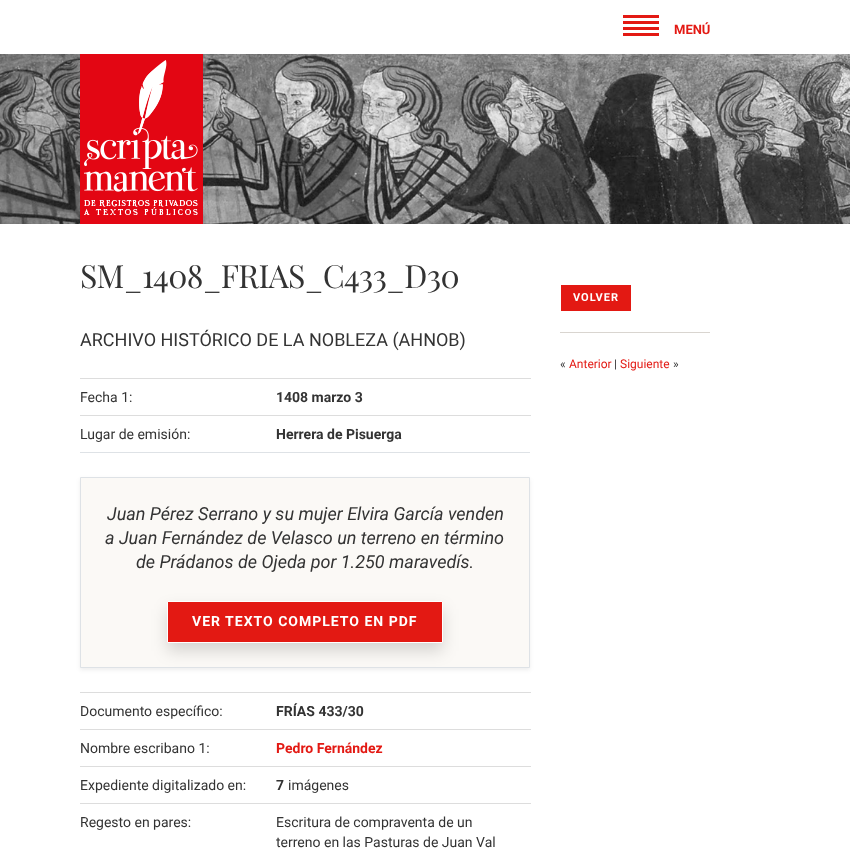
(async () => {
  const canvas = document.querySelector("canvas");
  canvas.width = 850;
  canvas.height = 855;
  const ctx = canvas.getContext("2d");
  ctx.miterLimit = 4;
  ctx.fontKerning = "normal";
  async function loadImage(src) {
    const img = new Image();
    img.src = src;
    await img.decode();
    return img;
  }

  ctx.fillStyle = "#ffffff";
  ctx.fillRect(0, 0, 850, 855);
  for (const [x, y, w, h, color] of [
    [623, 15, 36, 3, "#e31913"],
    [623, 21, 36, 3, "#e31913"],
    [623, 27, 36, 3, "#e31913"],
    [623, 33, 36, 3, "#e31913"],
  ]) {
    ctx.fillStyle = color;
    ctx.fillRect(x, y, w, h);
  }
  ctx.drawImage(await loadImage("img/1.png"), 0, 54, 850, 170);
  ctx.drawImage(await loadImage("img/2.png"), 80, 54, 123, 170);
  for (const [x, y, w, h, color] of [
    [80, 452, 450, 1, "#dee2e6"],
    [80, 378, 451, 1, "#dddddd"],
    [80, 415, 451, 1, "#dddddd"],
  ]) {
    ctx.fillStyle = color;
    ctx.fillRect(x, y, w, h);
  }
  ctx.fillStyle = "rgba(0, 0, 0, 0.07)";
  ctx.filter = "blur(2px)";
  ctx.beginPath();
  ctx.rect(80, 479, 450, 191);
  ctx.fill();
  ctx.filter = "none";
  ctx.fillStyle = "#fbf9f6";
  ctx.beginPath();
  ctx.rect(80.5, 477.5, 449, 190);
  ctx.fill();
  ctx.strokeStyle = "#dee2e6";
  ctx.stroke();
  ctx.fillStyle = "rgba(0, 0, 0, 0.15)";
  ctx.filter = "blur(8px)";
  ctx.beginPath();
  ctx.rect(167, 609, 276, 42);
  ctx.fill();
  ctx.filter = "none";
  ctx.fillStyle = "#e31913";
  ctx.beginPath();
  ctx.rect(167.5, 601.5, 275, 41);
  ctx.fill();
  ctx.strokeStyle = "#ffffff";
  ctx.stroke();
  for (const [x, y, w, h, color] of [
    [80, 692, 451, 1, "#dddddd"],
    [80, 729, 451, 1, "#dddddd"],
    [80, 766, 451, 1, "#dddddd"],
    [80, 803, 451, 1, "#dddddd"],
    [561, 285, 70, 26, "#e31913"],
    [560, 332, 150, 1, "#d9d5d0"],
  ]) {
    ctx.fillStyle = color;
    ctx.fillRect(x, y, w, h);
  }
  ctx.font = "bold 13px Roboto";
  ctx.fillStyle = "#e31913";
  ctx.fillText("MENÚ", 674, 34);
  ctx.letterSpacing = "-0.7px";
  ctx.font = "32px Playfair Display";
  ctx.fillStyle = "#333333";
  ctx.fillText("SM_1408_FRIAS_C433_D30", 80, 288);
  ctx.letterSpacing = "0px";
  ctx.font = "18px Roboto";
  ctx.fillText("ARCHIVO HISTÓRICO DE LA NOBLEZA (AHNOB)", 80, 346);
  ctx.font = "14px Roboto";
  ctx.fillText("Fecha 1:", 80, 402);
  ctx.font = "bold 14px Roboto";
  ctx.fillText("1408 marzo 3", 276, 402);
  ctx.font = "14px Roboto";
  ctx.fillText("Lugar de emisión:", 80, 439);
  ctx.font = "bold 14px Roboto";
  ctx.fillText("Herrera de Pisuerga", 276, 439);
  ctx.font = "italic 18px Roboto";
  for (const [text, x, y] of [
    ["Juan Pérez Serrano y su mujer Elvira García venden", 107, 520],
    ["a Juan Fernández de Velasco un terreno en término", 105, 544],
    ["de Prádanos de Ojeda por 1.250 maravedís.", 136, 568],
  ]) {
    ctx.fillText(text, x, y);
  }
  ctx.letterSpacing = "1px";
  ctx.font = "bold 14px Roboto";
  ctx.fillStyle = "#ffffff";
  ctx.fillText("VER TEXTO COMPLETO EN PDF", 192, 626);
  ctx.letterSpacing = "0px";
  ctx.font = "14px Roboto";
  ctx.fillStyle = "#333333";
  ctx.fillText("Documento específico:", 80, 716);
  ctx.font = "bold 14px Roboto";
  ctx.fillText("FRÍAS 433/30", 276, 716);
  ctx.font = "14px Roboto";
  ctx.fillText("Nombre escribano 1:", 80, 753);
  ctx.font = "bold 14px Roboto";
  ctx.fillStyle = "#e31913";
  ctx.fillText("Pedro Fernández", 276, 753);
  ctx.font = "14px Roboto";
  ctx.fillStyle = "#333333";
  ctx.fillText("Expediente digitalizado en:", 80, 790);
  ctx.font = "bold 14px Roboto";
  ctx.fillText("7", 276, 790);
  ctx.font = "14px Roboto";
  for (const [text, x, y] of [
    ["imágenes", 288, 790],
    ["Regesto en pares:", 80, 827],
    ["Escritura de compraventa de un", 276, 827],
    ["terreno en las Pasturas de Juan Val", 276, 847],
  ]) {
    ctx.fillText(text, x, y);
  }
  ctx.letterSpacing = "1px";
  ctx.font = "bold 11px Roboto";
  ctx.fillStyle = "#ffffff";
  ctx.fillText("VOLVER", 573, 301);
  ctx.letterSpacing = "0px";
  ctx.font = "12px Roboto";
  ctx.fillStyle = "#333333";
  ctx.fillText("«", 560, 368);
  ctx.fillStyle = "#e31913";
  ctx.fillText("Anterior", 569, 368);
  ctx.fillStyle = "#333333";
  ctx.fillText("|", 614, 368);
  ctx.fillStyle = "#e31913";
  ctx.fillText("Siguiente", 620, 368);
  ctx.fillStyle = "#333333";
  ctx.fillText("»", 673, 368);
})();
